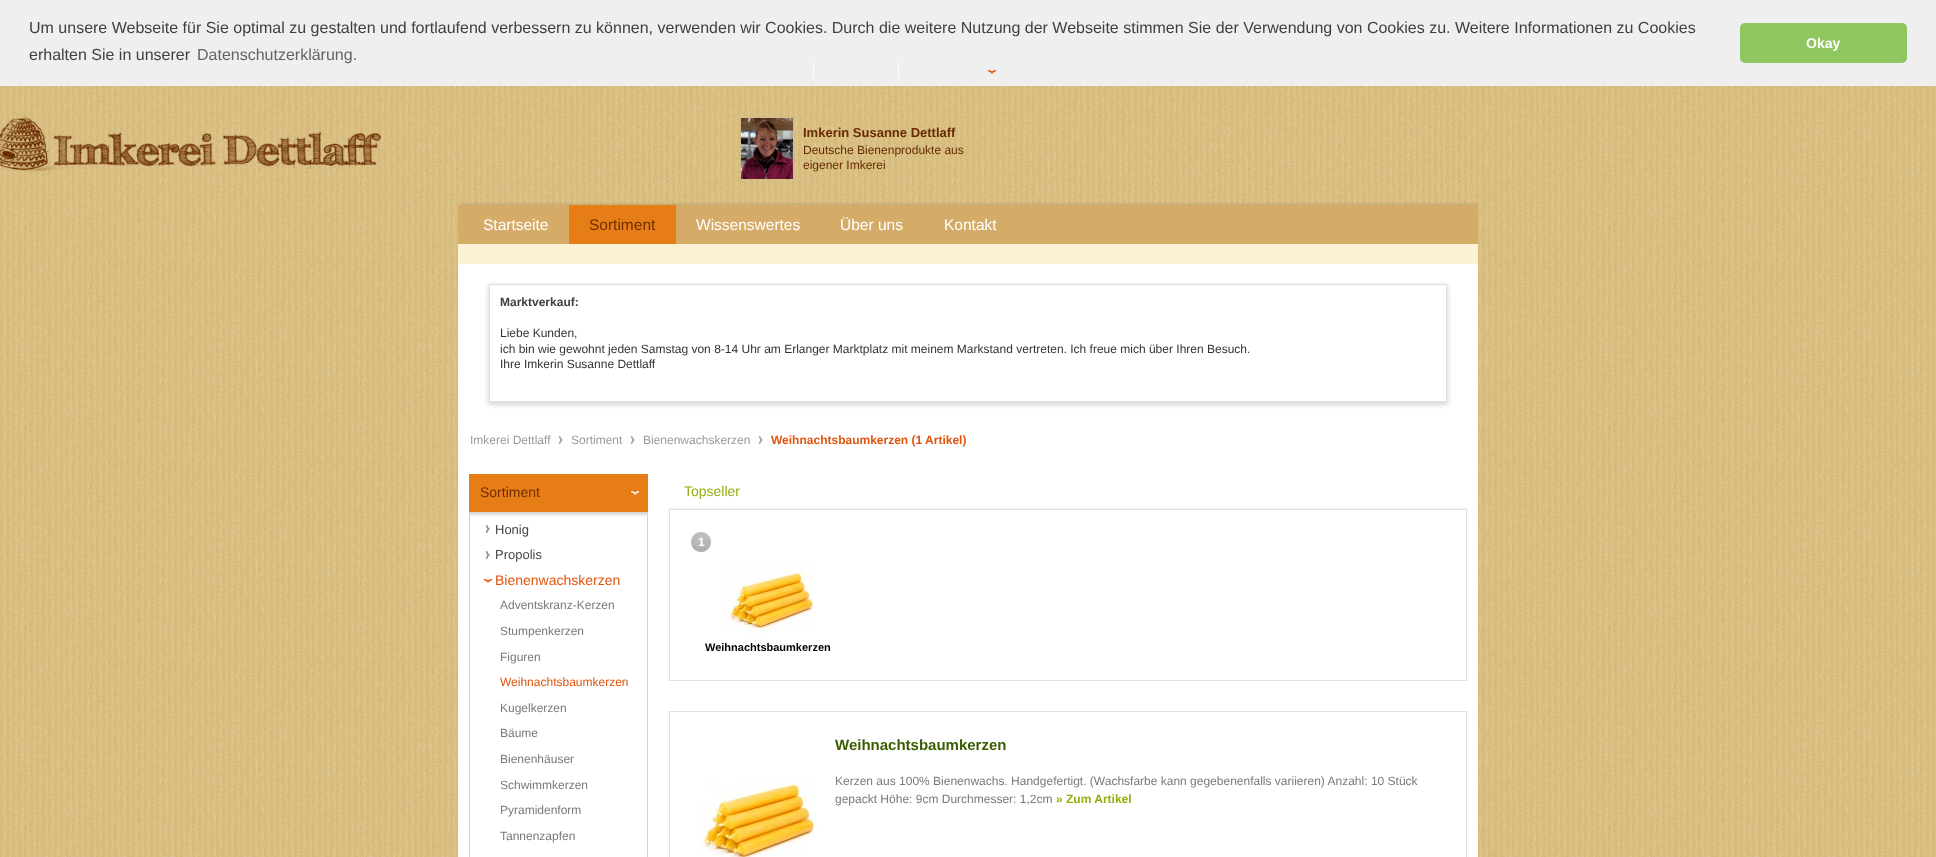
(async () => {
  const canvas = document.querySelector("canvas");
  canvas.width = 1936;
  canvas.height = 857;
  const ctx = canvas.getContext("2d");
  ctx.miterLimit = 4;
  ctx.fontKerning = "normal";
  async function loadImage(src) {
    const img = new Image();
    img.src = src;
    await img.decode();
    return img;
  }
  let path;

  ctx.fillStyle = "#ffffff";
  ctx.fillRect(0, 0, 1936, 857);
  ctx.drawImage(await loadImage("img/1.png"), 0, 86, 1936, 771);
  ctx.fillStyle = "#efefef";
  ctx.fillRect(0, 0, 1936, 86);
  ctx.fillStyle = "#8ec760";
  ctx.beginPath();
  ctx.roundRect(1740, 23, 167, 40, 5);
  ctx.fill();
  ctx.fillStyle = "#ffffff";
  ctx.fillRect(813, 63, 1, 15);
  ctx.fillRect(898, 63, 1, 15);
  ctx.drawImage(await loadImage("img/2.png"), 988, 70, 8, 4);
  ctx.drawImage(await loadImage("img/3.png"), 0, 116, 381, 56);
  ctx.drawImage(await loadImage("img/4.png"), 741, 118, 52, 61);
  ctx.drawImage(await loadImage("img/5.png"), 461, 202, 1017, 3);
  for (const [x, y, w, h, color] of [
    [458, 205, 1020, 39, "#d5ab68"],
    [458, 244, 1020, 20, "#fbf1d5"],
    [569, 205, 107, 39, "#e77d17"],
    [458, 264, 1020, 593, "#ffffff"],
  ]) {
    ctx.fillStyle = color;
    ctx.fillRect(x, y, w, h);
  }
  ctx.save();
  path = new Path2D("M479 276H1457V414H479ZM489 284H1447V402H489Z");
  ctx.clip(path, "evenodd");
  ctx.fillStyle = "rgba(0, 0, 0, 0.15)";
  ctx.filter = "blur(2.5px)";
  ctx.beginPath();
  ctx.rect(488, 285, 960, 120);
  ctx.fill();
  ctx.filter = "none";
  ctx.restore();
  ctx.strokeStyle = "#dfdfdf";
  ctx.strokeRect(489.5, 284.5, 957, 117);
  ctx.drawImage(await loadImage("img/6.png"), 559, 436, 4, 8);
  ctx.drawImage(await loadImage("img/6.png"), 631, 436, 4, 8);
  ctx.drawImage(await loadImage("img/6.png"), 759, 436, 4, 8);
  ctx.fillStyle = "#e77d17";
  ctx.fillRect(469, 474, 179, 38);
  ctx.drawImage(await loadImage("img/7.png"), 630, 490, 9, 5);
  ctx.drawImage(await loadImage("img/8.png"), 470, 512, 177, 5);
  ctx.fillStyle = "#d3d3d3";
  ctx.fillRect(647, 512, 1, 345);
  ctx.fillRect(469, 512, 1, 345);
  ctx.drawImage(await loadImage("img/9.png"), 486, 525, 4, 8);
  ctx.drawImage(await loadImage("img/9.png"), 486, 551, 4, 8);
  ctx.drawImage(await loadImage("img/10.png"), 484, 579, 8, 4);
  ctx.save();
  ctx.beginPath();
  ctx.rect(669, 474, 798, 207);
  ctx.clip();
  ctx.beginPath();
  ctx.rect(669, 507, 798, 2);
  ctx.clip();
  ctx.fillStyle = "rgba(0, 0, 0, 0.15)";
  ctx.filter = "blur(2.5px)";
  ctx.beginPath();
  ctx.rect(668, 510, 800, 174);
  ctx.fill();
  ctx.filter = "none";
  ctx.restore();
  ctx.strokeRect(669.5, 509.5, 797, 171);
  ctx.drawImage(await loadImage("img/11.png"), 691, 532, 20, 20);
  ctx.drawImage(await loadImage("img/12.png"), 720, 562, 94, 73);
  ctx.strokeRect(669.5, 711.5, 797, 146);
  ctx.drawImage(await loadImage("img/13.png"), 701, 775, 116, 82);
  ctx.font = "16px Liberation Sans";
  ctx.fillStyle = "#404040";
  ctx.fillText("Um unsere Webseite für Sie optimal zu gestalten und fortlaufend verbessern zu können, verwenden wir Cookies. Durch die weitere Nutzung der Webseite stimmen Sie der Verwendung von Cookies zu. Weitere Informationen zu Cookies", 29, 33);
  ctx.fillText("erhalten Sie in unserer", 29, 60);
  ctx.fillStyle = "#636363";
  ctx.fillText("Datenschutzerklärung.", 197, 60);
  ctx.font = "bold 14px Liberation Sans";
  ctx.fillStyle = "#ffffff";
  ctx.fillText("Okay", 1806, 48);
  ctx.font = "bold 13px Liberation Sans";
  ctx.fillStyle = "#672a01";
  ctx.fillText("Imkerin Susanne Dettlaff", 803, 137);
  ctx.font = "12px Liberation Sans";
  ctx.fillText("Deutsche Bienenprodukte aus", 803, 154);
  ctx.fillText("eigener Imkerei", 803, 169);
  ctx.font = "15.5px Liberation Sans";
  ctx.fillStyle = "#ffffff";
  ctx.fillText("Startseite", 483, 230);
  ctx.fillStyle = "#722e01";
  ctx.fillText("Sortiment", 589, 230);
  ctx.fillStyle = "#ffffff";
  for (const [text, x, y] of [
    ["Wissenswertes", 696, 230],
    ["Über uns", 840, 230],
    ["Kontakt", 944, 230],
  ]) {
    ctx.fillText(text, x, y);
  }
  ctx.font = "bold 12px Liberation Sans";
  ctx.fillStyle = "#404040";
  ctx.fillText("Marktverkauf:", 500, 306);
  ctx.font = "12px Liberation Sans";
  ctx.fillStyle = "#333333";
  for (const [text, x, y] of [
    ["Liebe Kunden,", 500, 337],
    ["ich bin wie gewohnt jeden Samstag von 8-14 Uhr am Erlanger Marktplatz mit meinem Markstand vertreten. Ich freue mich über Ihren Besuch.", 500, 353],
    ["Ihre Imkerin Susanne Dettlaff", 500, 368],
  ]) {
    ctx.fillText(text, x, y);
  }
  ctx.fillStyle = "#999999";
  for (const [text, x, y] of [
    ["Imkerei Dettlaff", 470, 444],
    ["Sortiment", 571, 444],
    ["Bienenwachskerzen", 643, 444],
  ]) {
    ctx.fillText(text, x, y);
  }
  ctx.font = "bold 12px Liberation Sans";
  ctx.fillStyle = "#e1540e";
  ctx.fillText("Weihnachtsbaumkerzen (1 Artikel)", 771, 444);
  ctx.font = "14px Liberation Sans";
  ctx.fillStyle = "#722e01";
  ctx.fillText("Sortiment", 480, 497);
  ctx.font = "13px Liberation Sans";
  ctx.fillStyle = "#474747";
  ctx.fillText("Honig", 495, 534);
  ctx.fillText("Propolis", 495, 559);
  ctx.font = "14px Liberation Sans";
  ctx.fillStyle = "#e1540e";
  ctx.fillText("Bienenwachskerzen", 495, 585);
  ctx.font = "12px Liberation Sans";
  ctx.fillStyle = "#797979";
  for (const [text, x, y] of [
    ["Adventskranz-Kerzen", 500, 609],
    ["Stumpenkerzen", 500, 635],
    ["Figuren", 500, 661],
  ]) {
    ctx.fillText(text, x, y);
  }
  ctx.fillStyle = "#e1540e";
  ctx.fillText("Weihnachtsbaumkerzen", 500, 686);
  ctx.fillStyle = "#797979";
  for (const [text, x, y] of [
    ["Kugelkerzen", 500, 712],
    ["Bäume", 500, 737],
    ["Bienenhäuser", 500, 763],
    ["Schwimmkerzen", 500, 789],
    ["Pyramidenform", 500, 814],
    ["Tannenzapfen", 500, 840],
  ]) {
    ctx.fillText(text, x, y);
  }
  ctx.font = "14px Liberation Sans";
  ctx.fillStyle = "#98ac10";
  ctx.fillText("Topseller", 684, 496);
  ctx.font = "bold 12px Liberation Sans";
  ctx.fillStyle = "#ffffff";
  ctx.fillText("1", 698, 546);
  ctx.font = "bold 11px Liberation Sans";
  ctx.fillStyle = "#000000";
  ctx.fillText("Weihnachtsbaumkerzen", 705, 651);
  ctx.font = "bold 15px Liberation Sans";
  ctx.fillStyle = "#3b5c00";
  ctx.fillText("Weihnachtsbaumkerzen", 835, 750);
  ctx.font = "12px Liberation Sans";
  ctx.fillStyle = "#797979";
  ctx.fillText("Kerzen aus 100% Bienenwachs. Handgefertigt. (Wachsfarbe kann gegebenenfalls variieren) Anzahl: 10 Stück", 835, 785);
  ctx.fillText("gepackt Höhe: 9cm Durchmesser: 1,2cm", 835, 803);
  ctx.font = "bold 12px Liberation Sans";
  ctx.fillStyle = "#98ac10";
  ctx.fillText("» Zum Artikel", 1056, 803);
})();
